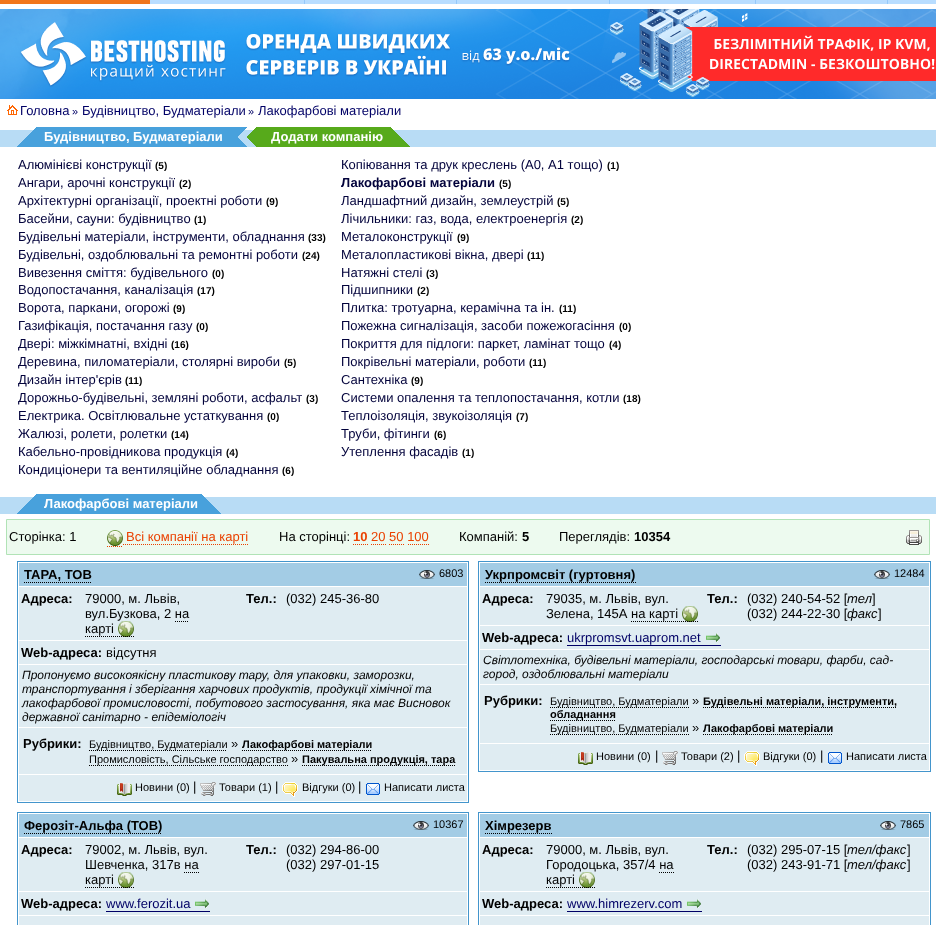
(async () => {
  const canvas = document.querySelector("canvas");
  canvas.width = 936;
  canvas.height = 925;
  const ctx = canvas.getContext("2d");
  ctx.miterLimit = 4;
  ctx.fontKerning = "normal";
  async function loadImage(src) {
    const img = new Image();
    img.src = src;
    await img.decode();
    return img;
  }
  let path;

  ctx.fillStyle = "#ffffff";
  ctx.fillRect(0, 0, 936, 925);
  for (const [x, y, w, h, color] of [
    [150, 0, 786, 4, "#b8ddff"],
    [0, 0, 150, 4, "#f1761b"],
    [304, 0, 1, 4, "#94c8fa"],
    [456, 0, 1, 4, "#94c8fa"],
    [609, 0, 1, 4, "#94c8fa"],
    [755, 0, 1, 4, "#94c8fa"],
    [887, 0, 1, 4, "#94c8fa"],
  ]) {
    ctx.fillStyle = color;
    ctx.fillRect(x, y, w, h);
  }
  ctx.drawImage(await loadImage("img/1.png"), 0, 9, 936, 90);
  ctx.drawImage(await loadImage("img/2.png"), 7, 105, 11, 10);
  ctx.fillStyle = "#b8dcf5";
  ctx.fillRect(427, 130, 509, 17);
  ctx.fillStyle = "#48a1dc";
  ctx.fillRect(36, 127, 211, 20);
  ctx.drawImage(await loadImage("img/3.png"), 0, 127, 36, 20);
  ctx.drawImage(await loadImage("img/4.png"), 238, 128, 9, 18);
  ctx.fillStyle = "#57aa1b";
  ctx.fillRect(256, 127, 135, 20);
  ctx.drawImage(await loadImage("img/5.png"), 247, 127, 9, 20);
  ctx.drawImage(await loadImage("img/6.png"), 391, 127, 36, 20);
  ctx.fillStyle = "#b8dcf5";
  ctx.fillRect(238, 497, 698, 17);
  ctx.fillStyle = "#48a1dc";
  ctx.fillRect(36, 494, 166, 20);
  ctx.drawImage(await loadImage("img/3.png"), 0, 494, 36, 20);
  ctx.drawImage(await loadImage("img/7.png"), 202, 494, 36, 20);
  ctx.fillStyle = "#edfaef";
  ctx.beginPath();
  ctx.rect(6.5, 519.5, 923, 35);
  ctx.fill();
  ctx.strokeStyle = "#b1e3b6";
  ctx.stroke();
  ctx.drawImage(await loadImage("img/8.png"), 107, 530, 16, 16);
  path = new Path2D("M107 546.5H123");
  ctx.strokeStyle = "#ea4100";
  ctx.setLineDash([1, 1]);
  ctx.stroke(path);
  path = new Path2D("M123 544.5H249");
  ctx.stroke(path);
  path = new Path2D("M353 544.5H368");
  ctx.stroke(path);
  path = new Path2D("M371 544.5H386");
  ctx.stroke(path);
  path = new Path2D("M389 544.5H404M408 544.5H429");
  ctx.stroke(path);
  ctx.drawImage(await loadImage("img/9.png"), 906, 530, 16, 15);
  ctx.strokeStyle = "#4395cc";
  ctx.setLineDash([]);
  ctx.strokeRect(17.5, 561.5, 451, 241);
  ctx.fillStyle = "#a3cce5";
  ctx.fillRect(19, 563, 448, 23);
  path = new Path2D("M24 582.5H92");
  ctx.strokeStyle = "#000000";
  ctx.setLineDash([1, 1]);
  ctx.stroke(path);
  ctx.drawImage(await loadImage("img/10.png"), 419, 570, 16, 9);
  ctx.fillStyle = "#dfecf2";
  ctx.fillRect(19, 587, 448, 53);
  path = new Path2D("M175 621.5H189");
  ctx.stroke(path);
  ctx.drawImage(await loadImage("img/11.png"), 118, 621, 16, 16);
  path = new Path2D("M85 636.5H134");
  ctx.stroke(path);
  for (const [x, y, w, h, color] of [
    [19, 641, 448, 23, "#dfecf2"],
    [19, 665, 448, 62, "#dfecf2"],
    [19, 728, 448, 46, "#dfecf2"],
  ]) {
    ctx.fillStyle = color;
    ctx.fillRect(x, y, w, h);
  }
  path = new Path2D("M89 750.5H227");
  ctx.stroke(path);
  path = new Path2D("M242 750.5H372");
  ctx.stroke(path);
  path = new Path2D("M89 765.5H288");
  ctx.stroke(path);
  path = new Path2D("M302 765.5H455");
  ctx.stroke(path);
  ctx.fillRect(19, 775, 448, 26);
  ctx.drawImage(await loadImage("img/12.png"), 117, 783, 15, 13);
  ctx.drawImage(await loadImage("img/13.png"), 200, 782, 16, 14);
  ctx.drawImage(await loadImage("img/14.png"), 282, 782, 16, 15);
  ctx.drawImage(await loadImage("img/15.png"), 366, 783, 14, 12);
  ctx.strokeStyle = "#4395cc";
  ctx.setLineDash([]);
  ctx.strokeRect(478.5, 561.5, 452, 210);
  ctx.fillStyle = "#a3cce5";
  ctx.fillRect(480, 563, 449, 23);
  path = new Path2D("M485 582.5H636");
  ctx.strokeStyle = "#000000";
  ctx.setLineDash([1, 1]);
  ctx.stroke(path);
  ctx.drawImage(await loadImage("img/10.png"), 874, 570, 16, 9);
  ctx.fillStyle = "#dfecf2";
  ctx.fillRect(480, 587, 449, 38);
  ctx.drawImage(await loadImage("img/11.png"), 682, 606, 16, 16);
  path = new Path2D("M631 621.5H698");
  ctx.stroke(path);
  ctx.fillRect(480, 626, 449, 23);
  ctx.fillStyle = "#000066";
  ctx.fillRect(567, 645, 154, 1);
  ctx.drawImage(await loadImage("img/16.png"), 706, 633, 14, 9);
  ctx.fillStyle = "#dfecf2";
  ctx.fillRect(480, 650, 449, 34);
  ctx.fillRect(480, 685, 449, 58);
  path = new Path2D("M550 707.5H689");
  ctx.stroke(path);
  path = new Path2D("M703 707.5H897");
  ctx.stroke(path);
  path = new Path2D("M550 720.5H616");
  ctx.stroke(path);
  path = new Path2D("M550 734.5H689");
  ctx.stroke(path);
  path = new Path2D("M703 734.5H833");
  ctx.stroke(path);
  ctx.fillRect(480, 744, 449, 26);
  ctx.drawImage(await loadImage("img/12.png"), 578, 752, 15, 13);
  ctx.drawImage(await loadImage("img/13.png"), 662, 751, 16, 14);
  ctx.drawImage(await loadImage("img/14.png"), 744, 751, 16, 15);
  ctx.drawImage(await loadImage("img/15.png"), 828, 752, 14, 12);
  ctx.strokeStyle = "#4395cc";
  ctx.setLineDash([]);
  ctx.strokeRect(17.5, 812.5, 451, 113);
  ctx.fillStyle = "#a3cce5";
  ctx.fillRect(19, 814, 448, 23);
  path = new Path2D("M24 833.5H162");
  ctx.strokeStyle = "#000000";
  ctx.setLineDash([1, 1]);
  ctx.stroke(path);
  ctx.drawImage(await loadImage("img/10.png"), 413, 821, 16, 9);
  ctx.fillStyle = "#dfecf2";
  ctx.fillRect(19, 838, 448, 53);
  path = new Path2D("M184 872.5H199");
  ctx.stroke(path);
  ctx.drawImage(await loadImage("img/11.png"), 118, 872, 16, 16);
  path = new Path2D("M85 887.5H134");
  ctx.stroke(path);
  ctx.fillRect(19, 892, 448, 23);
  ctx.fillStyle = "#000066";
  ctx.fillRect(106, 911, 104, 1);
  ctx.drawImage(await loadImage("img/16.png"), 195, 899, 14, 9);
  ctx.fillStyle = "#dfecf2";
  ctx.fillRect(19, 916, 448, 9);
  ctx.strokeStyle = "#4395cc";
  ctx.setLineDash([]);
  ctx.strokeRect(478.5, 812.5, 452, 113);
  ctx.fillStyle = "#a3cce5";
  ctx.fillRect(480, 814, 449, 23);
  path = new Path2D("M485 833.5H552");
  ctx.strokeStyle = "#000000";
  ctx.setLineDash([1, 1]);
  ctx.stroke(path);
  ctx.drawImage(await loadImage("img/10.png"), 880, 821, 16, 9);
  ctx.fillStyle = "#dfecf2";
  ctx.fillRect(480, 838, 449, 53);
  path = new Path2D("M659 872.5H674");
  ctx.stroke(path);
  ctx.drawImage(await loadImage("img/11.png"), 579, 872, 16, 16);
  path = new Path2D("M546 887.5H595");
  ctx.stroke(path);
  ctx.fillRect(480, 892, 449, 23);
  ctx.fillStyle = "#000066";
  ctx.fillRect(567, 911, 135, 1);
  ctx.drawImage(await loadImage("img/16.png"), 687, 899, 14, 9);
  ctx.fillStyle = "#dfecf2";
  ctx.fillRect(480, 916, 449, 9);
  ctx.font = "13px Liberation Sans";
  ctx.fillStyle = "#000066";
  ctx.fillText("Головна", 20, 115);
  ctx.font = "11px Liberation Sans";
  ctx.fillText("»", 72, 115);
  ctx.font = "13px Liberation Sans";
  ctx.fillText("Будівництво, Будматеріали", 82, 115);
  ctx.font = "11px Liberation Sans";
  ctx.fillText("»", 248, 115);
  ctx.font = "13px Liberation Sans";
  ctx.fillText("Лакофарбові матеріали", 258, 115);
  ctx.font = "bold 13px Liberation Sans";
  ctx.fillStyle = "#ffffff";
  ctx.fillText("Будівництво, Будматеріали", 44, 141);
  ctx.fillText("Додати компанію", 271, 141);
  ctx.font = "13px Liberation Sans";
  ctx.fillStyle = "#02023b";
  ctx.fillText("Алюмінієві конструкції", 18, 169);
  ctx.font = "bold 10px Liberation Sans";
  ctx.fillStyle = "#000000";
  ctx.fillText("(5)", 155, 169);
  ctx.font = "13px Liberation Sans";
  ctx.fillStyle = "#02023b";
  ctx.fillText("Ангари, арочні конструкції", 18, 187);
  ctx.font = "bold 10px Liberation Sans";
  ctx.fillStyle = "#000000";
  ctx.fillText("(2)", 179, 187);
  ctx.font = "13px Liberation Sans";
  ctx.fillStyle = "#02023b";
  ctx.fillText("Архітектурні організації, проектні роботи", 18, 205);
  ctx.font = "bold 10px Liberation Sans";
  ctx.fillStyle = "#000000";
  ctx.fillText("(9)", 266, 205);
  ctx.font = "13px Liberation Sans";
  ctx.fillStyle = "#02023b";
  ctx.fillText("Басейни, сауни: будівництво", 18, 223);
  ctx.font = "bold 10px Liberation Sans";
  ctx.fillStyle = "#000000";
  ctx.fillText("(1)", 194, 223);
  ctx.font = "13px Liberation Sans";
  ctx.fillStyle = "#02023b";
  ctx.fillText("Будівельні матеріали, інструменти, обладнання", 18, 241);
  ctx.font = "bold 10px Liberation Sans";
  ctx.fillStyle = "#000000";
  ctx.fillText("(33)", 308, 241);
  ctx.font = "13px Liberation Sans";
  ctx.fillStyle = "#02023b";
  ctx.fillText("Будівельні, оздоблювальні та ремонтні роботи", 18, 259);
  ctx.font = "bold 10px Liberation Sans";
  ctx.fillStyle = "#000000";
  ctx.fillText("(24)", 302, 259);
  ctx.font = "13px Liberation Sans";
  ctx.fillStyle = "#02023b";
  ctx.fillText("Вивезення сміття: будівельного", 18, 277);
  ctx.font = "bold 10px Liberation Sans";
  ctx.fillStyle = "#000000";
  ctx.fillText("(0)", 212, 277);
  ctx.font = "13px Liberation Sans";
  ctx.fillStyle = "#02023b";
  ctx.fillText("Водопостачання, каналізація", 18, 294);
  ctx.font = "bold 10px Liberation Sans";
  ctx.fillStyle = "#000000";
  ctx.fillText("(17)", 197, 294);
  ctx.font = "13px Liberation Sans";
  ctx.fillStyle = "#02023b";
  ctx.fillText("Ворота, паркани, огорожі", 18, 312);
  ctx.font = "bold 10px Liberation Sans";
  ctx.fillStyle = "#000000";
  ctx.fillText("(9)", 173, 312);
  ctx.font = "13px Liberation Sans";
  ctx.fillStyle = "#02023b";
  ctx.fillText("Газифікація, постачання газу", 18, 330);
  ctx.font = "bold 10px Liberation Sans";
  ctx.fillStyle = "#000000";
  ctx.fillText("(0)", 196, 330);
  ctx.font = "13px Liberation Sans";
  ctx.fillStyle = "#02023b";
  ctx.fillText("Двері: міжкімнатні, вхідні", 18, 348);
  ctx.font = "bold 10px Liberation Sans";
  ctx.fillStyle = "#000000";
  ctx.fillText("(16)", 171, 348);
  ctx.font = "13px Liberation Sans";
  ctx.fillStyle = "#02023b";
  ctx.fillText("Деревина, пиломатеріали, столярні вироби", 18, 366);
  ctx.font = "bold 10px Liberation Sans";
  ctx.fillStyle = "#000000";
  ctx.fillText("(5)", 284, 366);
  ctx.font = "13px Liberation Sans";
  ctx.fillStyle = "#02023b";
  ctx.fillText("Дизайн інтер'єрів", 18, 384);
  ctx.font = "bold 10px Liberation Sans";
  ctx.fillStyle = "#000000";
  ctx.fillText("(11)", 125, 384);
  ctx.font = "13px Liberation Sans";
  ctx.fillStyle = "#02023b";
  ctx.fillText("Дорожньо-будівельні, земляні роботи, асфальт", 18, 402);
  ctx.font = "bold 10px Liberation Sans";
  ctx.fillStyle = "#000000";
  ctx.fillText("(3)", 306, 402);
  ctx.font = "13px Liberation Sans";
  ctx.fillStyle = "#02023b";
  ctx.fillText("Електрика. Освітлювальне устаткування", 18, 420);
  ctx.font = "bold 10px Liberation Sans";
  ctx.fillStyle = "#000000";
  ctx.fillText("(0)", 267, 420);
  ctx.font = "13px Liberation Sans";
  ctx.fillStyle = "#02023b";
  ctx.fillText("Жалюзі, ролети, ролетки", 18, 438);
  ctx.font = "bold 10px Liberation Sans";
  ctx.fillStyle = "#000000";
  ctx.fillText("(14)", 171, 438);
  ctx.font = "13px Liberation Sans";
  ctx.fillStyle = "#02023b";
  ctx.fillText("Кабельно-провідникова продукція", 18, 456);
  ctx.font = "bold 10px Liberation Sans";
  ctx.fillStyle = "#000000";
  ctx.fillText("(4)", 226, 456);
  ctx.font = "13px Liberation Sans";
  ctx.fillStyle = "#02023b";
  ctx.fillText("Кондиціонери та вентиляційне обладнання", 18, 474);
  ctx.font = "bold 10px Liberation Sans";
  ctx.fillStyle = "#000000";
  ctx.fillText("(6)", 282, 474);
  ctx.font = "13px Liberation Sans";
  ctx.fillStyle = "#02023b";
  ctx.fillText("Копіювання та друк креслень (А0, А1 тощо)", 341, 169);
  ctx.font = "bold 10px Liberation Sans";
  ctx.fillStyle = "#000000";
  ctx.fillText("(1)", 607, 169);
  ctx.font = "bold 13px Liberation Sans";
  ctx.fillStyle = "#02023b";
  ctx.fillText("Лакофарбові матеріали", 341, 187);
  ctx.font = "bold 10px Liberation Sans";
  ctx.fillStyle = "#000000";
  ctx.fillText("(5)", 499, 187);
  ctx.font = "13px Liberation Sans";
  ctx.fillStyle = "#02023b";
  ctx.fillText("Ландшафтний дизайн, землеустрій", 341, 205);
  ctx.font = "bold 10px Liberation Sans";
  ctx.fillStyle = "#000000";
  ctx.fillText("(5)", 557, 205);
  ctx.font = "13px Liberation Sans";
  ctx.fillStyle = "#02023b";
  ctx.fillText("Лічильники: газ, вода, електроенергія", 341, 223);
  ctx.font = "bold 10px Liberation Sans";
  ctx.fillStyle = "#000000";
  ctx.fillText("(2)", 571, 223);
  ctx.font = "13px Liberation Sans";
  ctx.fillStyle = "#02023b";
  ctx.fillText("Металоконструкції", 341, 241);
  ctx.font = "bold 10px Liberation Sans";
  ctx.fillStyle = "#000000";
  ctx.fillText("(9)", 457, 241);
  ctx.font = "13px Liberation Sans";
  ctx.fillStyle = "#02023b";
  ctx.fillText("Металопластикові вікна, двері", 341, 259);
  ctx.font = "bold 10px Liberation Sans";
  ctx.fillStyle = "#000000";
  ctx.fillText("(11)", 527, 259);
  ctx.font = "13px Liberation Sans";
  ctx.fillStyle = "#02023b";
  ctx.fillText("Натяжні стелі", 341, 277);
  ctx.font = "bold 10px Liberation Sans";
  ctx.fillStyle = "#000000";
  ctx.fillText("(3)", 426, 277);
  ctx.font = "13px Liberation Sans";
  ctx.fillStyle = "#02023b";
  ctx.fillText("Підшипники", 341, 294);
  ctx.font = "bold 10px Liberation Sans";
  ctx.fillStyle = "#000000";
  ctx.fillText("(2)", 417, 294);
  ctx.font = "13px Liberation Sans";
  ctx.fillStyle = "#02023b";
  ctx.fillText("Плитка: тротуарна, керамічна та ін.", 341, 312);
  ctx.font = "bold 10px Liberation Sans";
  ctx.fillStyle = "#000000";
  ctx.fillText("(11)", 559, 312);
  ctx.font = "13px Liberation Sans";
  ctx.fillStyle = "#02023b";
  ctx.fillText("Пожежна сигналізація, засоби пожежогасіння", 341, 330);
  ctx.font = "bold 10px Liberation Sans";
  ctx.fillStyle = "#000000";
  ctx.fillText("(0)", 619, 330);
  ctx.font = "13px Liberation Sans";
  ctx.fillStyle = "#02023b";
  ctx.fillText("Покриття для підлоги: паркет, ламінат тощо", 341, 348);
  ctx.font = "bold 10px Liberation Sans";
  ctx.fillStyle = "#000000";
  ctx.fillText("(4)", 609, 348);
  ctx.font = "13px Liberation Sans";
  ctx.fillStyle = "#02023b";
  ctx.fillText("Покрівельні матеріали, роботи", 341, 366);
  ctx.font = "bold 10px Liberation Sans";
  ctx.fillStyle = "#000000";
  ctx.fillText("(11)", 529, 366);
  ctx.font = "13px Liberation Sans";
  ctx.fillStyle = "#02023b";
  ctx.fillText("Сантехніка", 341, 384);
  ctx.font = "bold 10px Liberation Sans";
  ctx.fillStyle = "#000000";
  ctx.fillText("(9)", 411, 384);
  ctx.font = "13px Liberation Sans";
  ctx.fillStyle = "#02023b";
  ctx.fillText("Системи опалення та теплопостачання, котли", 341, 402);
  ctx.font = "bold 10px Liberation Sans";
  ctx.fillStyle = "#000000";
  ctx.fillText("(18)", 623, 402);
  ctx.font = "13px Liberation Sans";
  ctx.fillStyle = "#02023b";
  ctx.fillText("Теплоізоляція, звукоізоляція", 341, 420);
  ctx.font = "bold 10px Liberation Sans";
  ctx.fillStyle = "#000000";
  ctx.fillText("(7)", 516, 420);
  ctx.font = "13px Liberation Sans";
  ctx.fillStyle = "#02023b";
  ctx.fillText("Труби, фітинги", 341, 438);
  ctx.font = "bold 10px Liberation Sans";
  ctx.fillStyle = "#000000";
  ctx.fillText("(6)", 434, 438);
  ctx.font = "13px Liberation Sans";
  ctx.fillStyle = "#02023b";
  ctx.fillText("Утеплення фасадів", 341, 456);
  ctx.font = "bold 10px Liberation Sans";
  ctx.fillStyle = "#000000";
  ctx.fillText("(1)", 462, 456);
  ctx.font = "bold 13px Liberation Sans";
  ctx.fillStyle = "#ffffff";
  ctx.fillText("Лакофарбові матеріали", 44, 508);
  ctx.font = "13px Liberation Sans";
  ctx.fillStyle = "#000000";
  ctx.fillText("Сторінка: 1", 9, 541);
  ctx.fillStyle = "#ea4100";
  ctx.fillText("Всі компанії на карті", 126, 541);
  ctx.fillStyle = "#000000";
  ctx.fillText("На сторінці:", 279, 541);
  ctx.font = "bold 13px Liberation Sans";
  ctx.fillStyle = "#ea4100";
  ctx.fillText("10", 353, 541);
  ctx.font = "13px Liberation Sans";
  ctx.fillText("20 50 100", 371, 541);
  ctx.fillStyle = "#000000";
  ctx.fillText("Компаній:", 459, 541);
  ctx.font = "bold 13px Liberation Sans";
  ctx.fillText("5", 522, 541);
  ctx.font = "13px Liberation Sans";
  ctx.fillText("Переглядів:", 559, 541);
  ctx.font = "bold 13px Liberation Sans";
  ctx.fillText("10354", 634, 541);
  ctx.fillText("ТАРА, ТОВ", 24, 579);
  ctx.font = "11px Liberation Sans";
  ctx.fillText("6803", 439, 577);
  ctx.font = "bold 13px Liberation Sans";
  ctx.fillText("Адреса:", 21, 603);
  ctx.font = "13px Liberation Sans";
  for (const [text, x, y] of [
    ["79000, м. Львів,", 85, 603],
    ["вул.Бузкова, 2 на", 85, 618],
    ["карті", 85, 633],
  ]) {
    ctx.fillText(text, x, y);
  }
  ctx.font = "bold 13px Liberation Sans";
  ctx.fillText("Тел.:", 246, 603);
  ctx.font = "13px Liberation Sans";
  ctx.fillText("(032) 245-36-80", 286, 603);
  ctx.font = "bold 13px Liberation Sans";
  ctx.fillText("Web-адреса:", 21, 657);
  ctx.font = "13px Liberation Sans";
  ctx.fillText("відсутня", 106, 657);
  ctx.font = "italic 12px Liberation Sans";
  for (const [text, x, y] of [
    ["Пропонуємо високоякісну пластикову тару, для упаковки, заморозки,", 22, 679],
    ["транспортування і зберігання харчових продуктів, продукції хімічної та", 22, 693],
    ["лакофарбової промисловості, побутового застосування, яка має Висновок", 22, 707],
    ["державної санітарно - епідеміологіч", 22, 721],
  ]) {
    ctx.fillText(text, x, y);
  }
  ctx.font = "bold 13px Liberation Sans";
  ctx.fillText("Рубрики:", 23, 748);
  ctx.font = "11px Liberation Sans";
  ctx.fillText("Будівництво, Будматеріали", 89, 748);
  ctx.font = "13px Liberation Sans";
  ctx.fillText("»", 231, 748);
  ctx.font = "bold 11px Liberation Sans";
  ctx.fillText("Лакофарбові матеріали", 242, 748);
  ctx.font = "11px Liberation Sans";
  ctx.fillText("Промисловість, Сільське господарство", 89, 763);
  ctx.font = "13px Liberation Sans";
  ctx.fillText("»", 291, 763);
  ctx.font = "bold 11px Liberation Sans";
  ctx.fillText("Пакувальна продукція, тара", 302, 763);
  ctx.font = "11px Liberation Sans";
  ctx.fillText("Новини (0)", 135, 791);
  ctx.font = "13px Liberation Sans";
  ctx.fillText("|", 193, 791);
  ctx.font = "11px Liberation Sans";
  ctx.fillText("Товари (1)", 219, 791);
  ctx.font = "13px Liberation Sans";
  ctx.fillText("|", 275, 791);
  ctx.font = "11px Liberation Sans";
  ctx.fillText("Відгуки (0)", 302, 791);
  ctx.font = "13px Liberation Sans";
  ctx.fillText("|", 358, 791);
  ctx.font = "11px Liberation Sans";
  ctx.fillText("Написати листа", 384, 791);
  ctx.font = "bold 13px Liberation Sans";
  ctx.fillText("Укрпромсвіт (гуртовня)", 485, 579);
  ctx.font = "11px Liberation Sans";
  ctx.fillText("12484", 894, 577);
  ctx.font = "bold 13px Liberation Sans";
  ctx.fillText("Адреса:", 482, 603);
  ctx.font = "13px Liberation Sans";
  ctx.fillText("79035, м. Львів, вул.", 546, 603);
  ctx.fillText("Зелена, 145А на карті", 546, 618);
  ctx.font = "bold 13px Liberation Sans";
  ctx.fillText("Тел.:", 707, 603);
  ctx.font = "13px Liberation Sans";
  ctx.fillText("(032) 240-54-52 [", 747, 603);
  ctx.font = "italic 13px Liberation Sans";
  ctx.fillText("тел", 847, 603);
  ctx.font = "13px Liberation Sans";
  ctx.fillText("]", 872, 603);
  ctx.fillText("(032) 244-22-30 [", 747, 618);
  ctx.font = "italic 13px Liberation Sans";
  ctx.fillText("факс", 847, 618);
  ctx.font = "13px Liberation Sans";
  ctx.fillText("]", 878, 618);
  ctx.font = "bold 13px Liberation Sans";
  ctx.fillText("Web-адреса:", 482, 642);
  ctx.font = "13px Liberation Sans";
  ctx.fillStyle = "#000066";
  ctx.fillText("ukrpromsvt.uaprom.net", 567, 642);
  ctx.font = "italic 12px Liberation Sans";
  ctx.fillStyle = "#000000";
  ctx.fillText("Світлотехніка, будівельні матеріали, господарські товари, фарби, сад-", 483, 664);
  ctx.fillText("город, оздоблювальні матеріали", 483, 678);
  ctx.font = "bold 13px Liberation Sans";
  ctx.fillText("Рубрики:", 484, 705);
  ctx.font = "11px Liberation Sans";
  ctx.fillText("Будівництво, Будматеріали", 550, 705);
  ctx.font = "13px Liberation Sans";
  ctx.fillText("»", 692, 705);
  ctx.font = "bold 11px Liberation Sans";
  ctx.fillText("Будівельні матеріали, інструменти,", 703, 705);
  ctx.fillText("обладнання", 550, 718);
  ctx.font = "11px Liberation Sans";
  ctx.fillText("Будівництво, Будматеріали", 550, 732);
  ctx.font = "13px Liberation Sans";
  ctx.fillText("»", 692, 732);
  ctx.font = "bold 11px Liberation Sans";
  ctx.fillText("Лакофарбові матеріали", 703, 732);
  ctx.font = "11px Liberation Sans";
  ctx.fillText("Новини (0)", 596, 760);
  ctx.font = "13px Liberation Sans";
  ctx.fillText("|", 655, 760);
  ctx.font = "11px Liberation Sans";
  ctx.fillText("Товари (2)", 681, 760);
  ctx.font = "13px Liberation Sans";
  ctx.fillText("|", 737, 760);
  ctx.font = "11px Liberation Sans";
  ctx.fillText("Відгуки (0)", 763, 760);
  ctx.font = "13px Liberation Sans";
  ctx.fillText("|", 820, 760);
  ctx.font = "11px Liberation Sans";
  ctx.fillText("Написати листа", 846, 760);
  ctx.font = "bold 13px Liberation Sans";
  ctx.fillText("Ферозіт-Альфа (ТОВ)", 24, 830);
  ctx.font = "11px Liberation Sans";
  ctx.fillText("10367", 433, 828);
  ctx.font = "bold 13px Liberation Sans";
  ctx.fillText("Адреса:", 21, 854);
  ctx.font = "13px Liberation Sans";
  for (const [text, x, y] of [
    ["79002, м. Львів, вул.", 85, 854],
    ["Шевченка, 317в на", 85, 869],
    ["карті", 85, 884],
  ]) {
    ctx.fillText(text, x, y);
  }
  ctx.font = "bold 13px Liberation Sans";
  ctx.fillText("Тел.:", 246, 854);
  ctx.font = "13px Liberation Sans";
  ctx.fillText("(032) 294-86-00", 286, 854);
  ctx.fillText("(032) 297-01-15", 286, 869);
  ctx.font = "bold 13px Liberation Sans";
  ctx.fillText("Web-адреса:", 21, 908);
  ctx.font = "13px Liberation Sans";
  ctx.fillStyle = "#000066";
  ctx.fillText("www.ferozit.ua", 106, 908);
  ctx.font = "bold 13px Liberation Sans";
  ctx.fillStyle = "#000000";
  ctx.fillText("Хімрезерв", 485, 830);
  ctx.font = "11px Liberation Sans";
  ctx.fillText("7865", 900, 828);
  ctx.font = "bold 13px Liberation Sans";
  ctx.fillText("Адреса:", 482, 854);
  ctx.font = "13px Liberation Sans";
  for (const [text, x, y] of [
    ["79000, м. Львів, вул.", 546, 854],
    ["Городоцька, 357/4 на", 546, 869],
    ["карті", 546, 884],
  ]) {
    ctx.fillText(text, x, y);
  }
  ctx.font = "bold 13px Liberation Sans";
  ctx.fillText("Тел.:", 707, 854);
  ctx.font = "13px Liberation Sans";
  ctx.fillText("(032) 295-07-15 [", 747, 854);
  ctx.font = "italic 13px Liberation Sans";
  ctx.fillText("тел/факс", 847, 854);
  ctx.font = "13px Liberation Sans";
  ctx.fillText("]", 907, 854);
  ctx.fillText("(032) 243-91-71 [", 747, 869);
  ctx.font = "italic 13px Liberation Sans";
  ctx.fillText("тел/факс", 847, 869);
  ctx.font = "13px Liberation Sans";
  ctx.fillText("]", 907, 869);
  ctx.font = "bold 13px Liberation Sans";
  ctx.fillText("Web-адреса:", 482, 908);
  ctx.font = "13px Liberation Sans";
  ctx.fillStyle = "#000066";
  ctx.fillText("www.himrezerv.com", 567, 908);
})();
